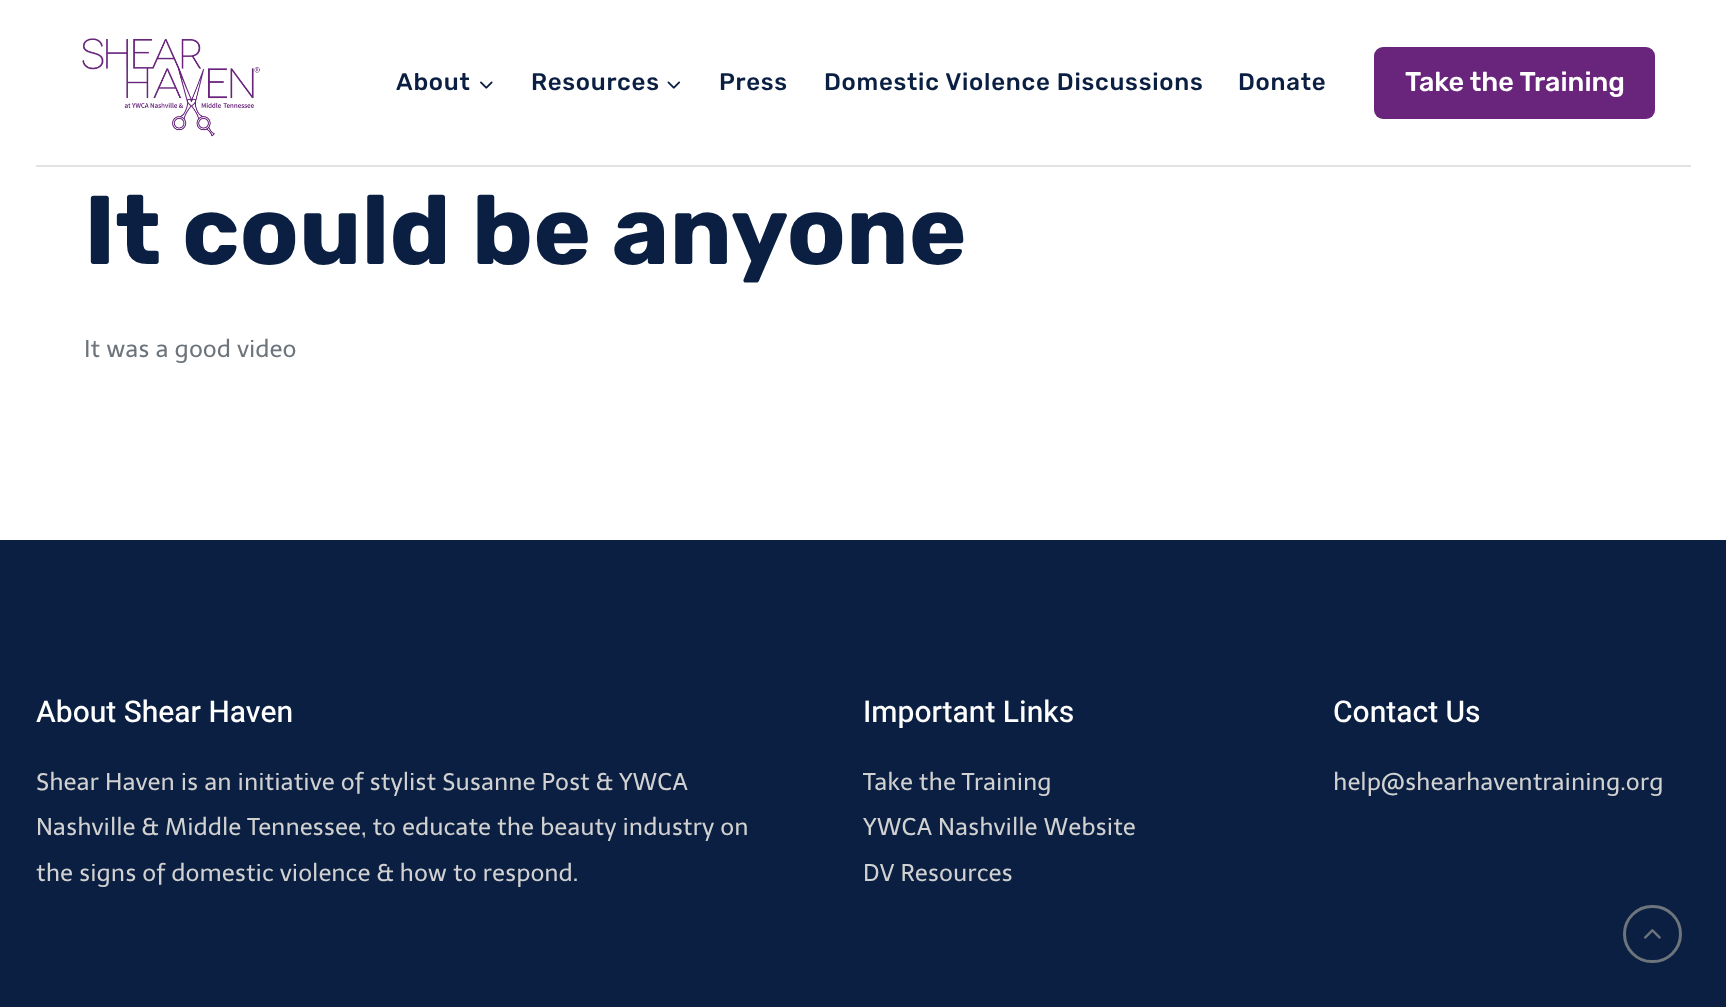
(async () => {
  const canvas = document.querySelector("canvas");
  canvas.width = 1726;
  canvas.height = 1007;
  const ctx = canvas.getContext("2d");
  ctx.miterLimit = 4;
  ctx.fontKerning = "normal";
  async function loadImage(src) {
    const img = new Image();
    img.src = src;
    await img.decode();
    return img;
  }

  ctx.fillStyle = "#ffffff";
  ctx.fillRect(0, 0, 1726, 1007);
  ctx.fillStyle = "#e2e3e5";
  ctx.fillRect(36, 165, 1655, 2);
  ctx.drawImage(await loadImage("img/1.png"), 82, 38, 178, 99);
  ctx.drawImage(await loadImage("img/2.png"), 480, 81, 13, 8);
  ctx.drawImage(await loadImage("img/3.png"), 667, 81, 13, 8);
  ctx.fillStyle = "#68257b";
  ctx.beginPath();
  ctx.roundRect(1374, 47, 281, 72, 9);
  ctx.fill();
  ctx.fillStyle = "#0a1f41";
  ctx.fillRect(0, 540, 1726, 467);
  ctx.beginPath();
  ctx.roundRect(1624.5, 906.5, 56, 55, 27.5);
  ctx.strokeStyle = "#6e747c";
  ctx.lineWidth = 3;
  ctx.stroke();
  ctx.drawImage(await loadImage("img/4.png"), 1644, 929, 17, 10);
  ctx.letterSpacing = "0.75px";
  ctx.font = "500 24px Rubik";
  for (const [text, x, y] of [
    ["About", 396, 90],
    ["Resources", 531, 90],
    ["Press", 719, 90],
    ["Domestic Violence Discussions", 824, 90],
    ["Donate", 1238, 90],
  ]) {
    ctx.fillText(text, x, y);
  }
  ctx.letterSpacing = "0px";
  ctx.font = "500 27px Rubik";
  ctx.fillStyle = "#ffffff";
  ctx.fillText("Take the Training", 1405, 91);
  ctx.font = "bold 97.5px Rubik";
  ctx.fillStyle = "#0a1f41";
  ctx.fillText("It could be anyone", 84, 264);
  ctx.font = "24px Telex";
  ctx.fillStyle = "#6e747c";
  ctx.fillText("It was a good video", 84, 357);
  ctx.font = "500 30px Heebo";
  ctx.fillStyle = "#ffffff";
  ctx.fillText("About Shear Haven", 36, 722);
  ctx.font = "24px Telex";
  ctx.fillStyle = "#d1d1d1";
  for (const [text, x, y] of [
    ["Shear Haven is an initiative of stylist Susanne Post & YWCA", 36, 790],
    ["Nashville & Middle Tennessee, to educate the beauty industry on", 36, 835],
    ["the signs of domestic violence & how to respond.", 36, 881],
  ]) {
    ctx.fillText(text, x, y);
  }
  ctx.font = "500 30px Heebo";
  ctx.fillStyle = "#ffffff";
  ctx.fillText("Important Links", 863, 722);
  ctx.font = "24px Telex";
  ctx.fillStyle = "#d1d1d1";
  for (const [text, x, y] of [
    ["Take the Training", 863, 790],
    ["YWCA Nashville Website", 863, 835],
    ["DV Resources", 863, 881],
  ]) {
    ctx.fillText(text, x, y);
  }
  ctx.font = "500 30px Heebo";
  ctx.fillStyle = "#ffffff";
  ctx.fillText("Contact Us", 1333, 722);
  ctx.font = "24px Telex";
  ctx.fillStyle = "#d1d1d1";
  ctx.fillText("help@shearhaventraining.org", 1333, 790);
})();
